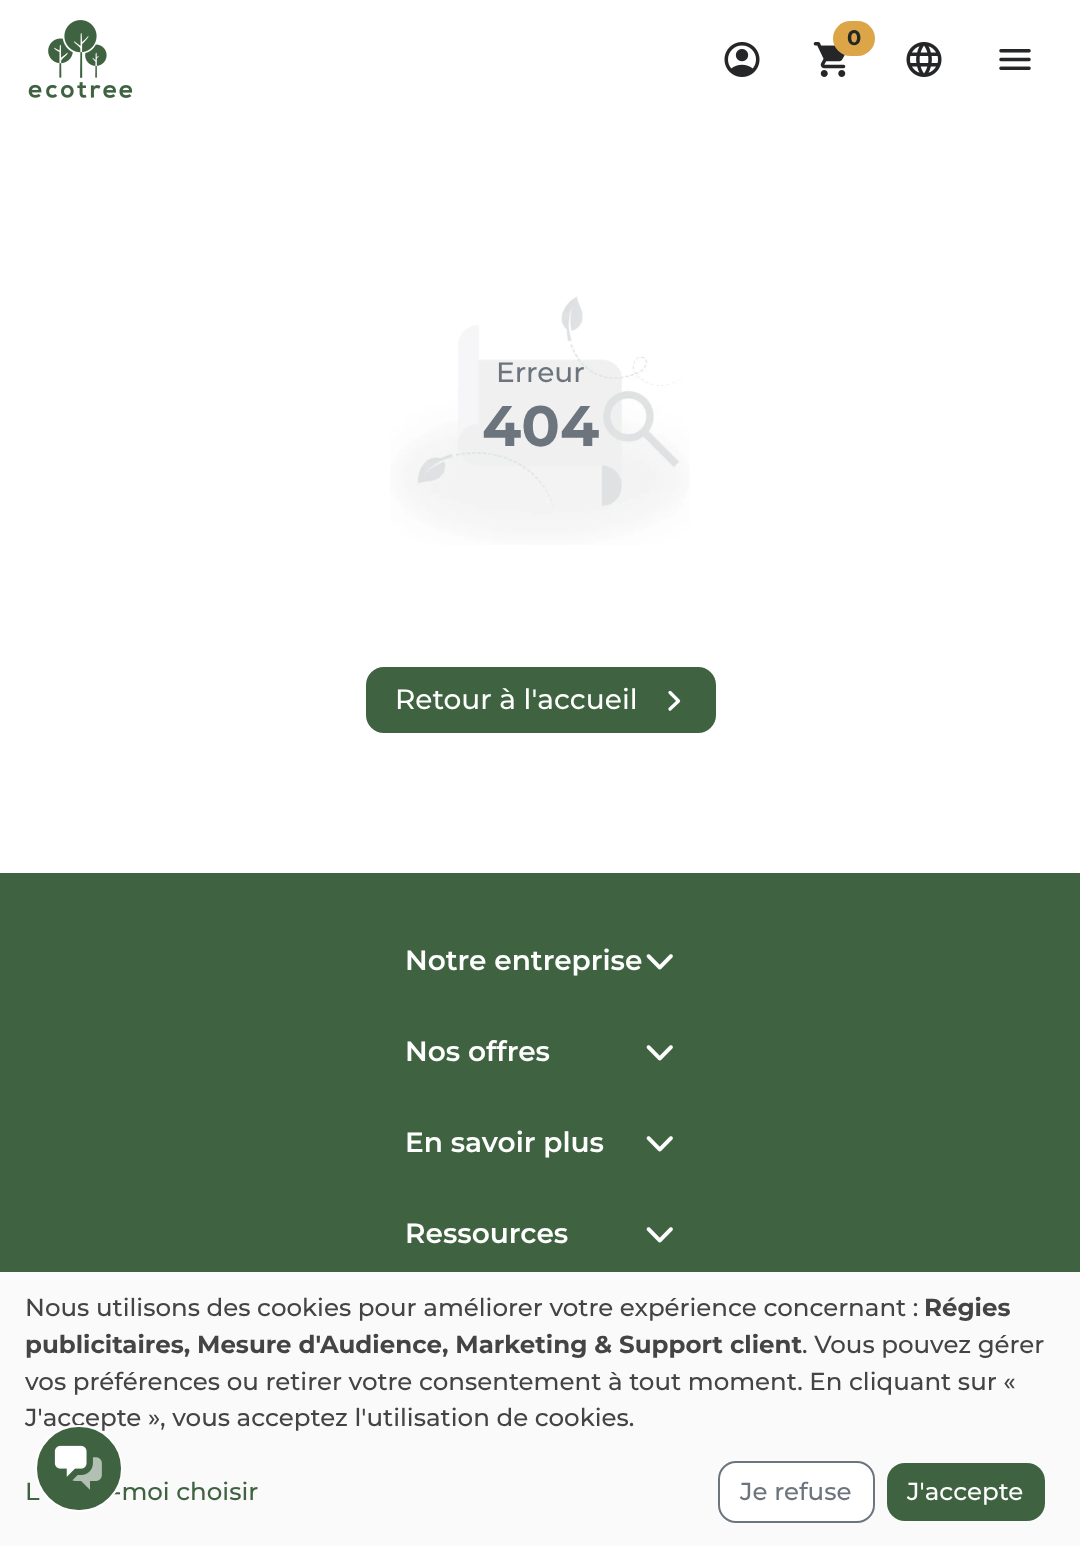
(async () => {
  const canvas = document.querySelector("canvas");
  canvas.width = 1080;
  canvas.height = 1546;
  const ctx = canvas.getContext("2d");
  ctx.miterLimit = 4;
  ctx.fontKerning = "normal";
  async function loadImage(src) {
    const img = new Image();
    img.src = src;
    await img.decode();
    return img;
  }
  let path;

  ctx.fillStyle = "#ffffff";
  ctx.fillRect(0, 0, 1080, 1546);
  ctx.drawImage(await loadImage("img/1.png"), 28, 20, 105, 78);
  ctx.drawImage(await loadImage("img/2.png"), 813, 42, 33, 35);
  ctx.fillStyle = "#dca547";
  ctx.beginPath();
  ctx.roundRect(833, 21, 42, 35, 17.5);
  ctx.fill();
  ctx.drawImage(await loadImage("img/3.png"), 724, 42, 36, 35);
  ctx.drawImage(await loadImage("img/4.png"), 906, 42, 36, 35);
  ctx.drawImage(await loadImage("img/5.png"), 999, 49, 32, 21);
  ctx.drawImage(await loadImage("img/6.png"), 390, 296, 300, 249);
  ctx.fillStyle = "#3f6341";
  ctx.beginPath();
  ctx.roundRect(367, 668, 348, 64, 17);
  ctx.fill();
  ctx.strokeStyle = "#3f6341";
  ctx.lineWidth = 2;
  ctx.stroke();
  path = new Path2D("M670 692.5L678.5 701L670 709");
  ctx.strokeStyle = "#ffffff";
  ctx.lineWidth = 3.3;
  ctx.lineCap = "round";
  ctx.lineJoin = "round";
  ctx.stroke(path);
  ctx.fillRect(0, 873, 1080, 399);
  ctx.drawImage(await loadImage("img/7.png"), 646, 954, 27, 16);
  ctx.drawImage(await loadImage("img/7.png"), 646, 1045, 27, 16);
  ctx.drawImage(await loadImage("img/7.png"), 646, 1136, 27, 16);
  ctx.drawImage(await loadImage("img/7.png"), 646, 1227, 27, 16);
  ctx.fillStyle = "#fafafa";
  ctx.fillRect(0, 1272, 1080, 274);
  ctx.fillStyle = "#ffffff";
  ctx.beginPath();
  ctx.roundRect(719, 1462, 155, 60, 17);
  ctx.fill();
  ctx.strokeStyle = "#6c757d";
  ctx.lineWidth = 2;
  ctx.lineJoin = "miter";
  ctx.stroke();
  ctx.fillStyle = "#3f6341";
  ctx.beginPath();
  ctx.roundRect(887, 1463, 158, 58, 18);
  ctx.fill();
  ctx.font = "bold 21px Montserrat";
  ctx.fillStyle = "#242628";
  ctx.fillText("0", 847, 45);
  ctx.font = "500 28px Montserrat";
  ctx.fillStyle = "#6c757d";
  ctx.fillText("Erreur", 496, 382);
  ctx.font = "bold 57px Montserrat";
  ctx.fillText("404", 482, 446);
  ctx.font = "500 28px Montserrat";
  ctx.fillStyle = "#ffffff";
  ctx.fillText("Retour à l'accueil", 395, 709);
  ctx.font = "600 28px Montserrat";
  for (const [text, x, y] of [
    ["Notre entreprise", 405, 970],
    ["Nos offres", 405, 1061],
    ["En savoir plus", 405, 1152],
    ["Ressources", 405, 1243],
  ]) {
    ctx.fillText(text, x, y);
  }
  ctx.font = "500 24.5px Montserrat";
  ctx.fillStyle = "#444444";
  ctx.fillText("Nous utilisons des cookies pour améliorer votre expérience concernant :", 25, 1316);
  ctx.font = "bold 24.5px Montserrat";
  ctx.fillText("Régies", 924, 1316);
  ctx.fillText("publicitaires, Mesure d'Audience, Marketing & Support client", 25, 1353);
  ctx.font = "500 24.5px Montserrat";
  for (const [text, x, y] of [
    [". Vous pouvez gérer", 802, 1353],
    ["vos préférences ou retirer votre consentement à tout moment. En cliquant sur «", 25, 1390],
    ["J'accepte », vous acceptez l'utilisation de cookies.", 25, 1426],
  ]) {
    ctx.fillText(text, x, y);
  }
  ctx.fillStyle = "#3f6341";
  ctx.fillText("L", 25, 1500);
  ctx.fillText("-moi choisir", 112, 1500);
  ctx.fillStyle = "#6c757d";
  ctx.fillText("Je refuse", 740, 1500);
  ctx.fillStyle = "#ffffff";
  ctx.fillText("J'accepte", 907, 1500);
  ctx.fillStyle = "#3f6341";
  ctx.beginPath();
  ctx.roundRect(36, 1426, 86, 85, 42.5);
  ctx.fill();
  ctx.strokeStyle = "#ffffff";
  ctx.stroke();
  ctx.drawImage(await loadImage("img/8.png"), 54, 1445, 48, 45);
})();
